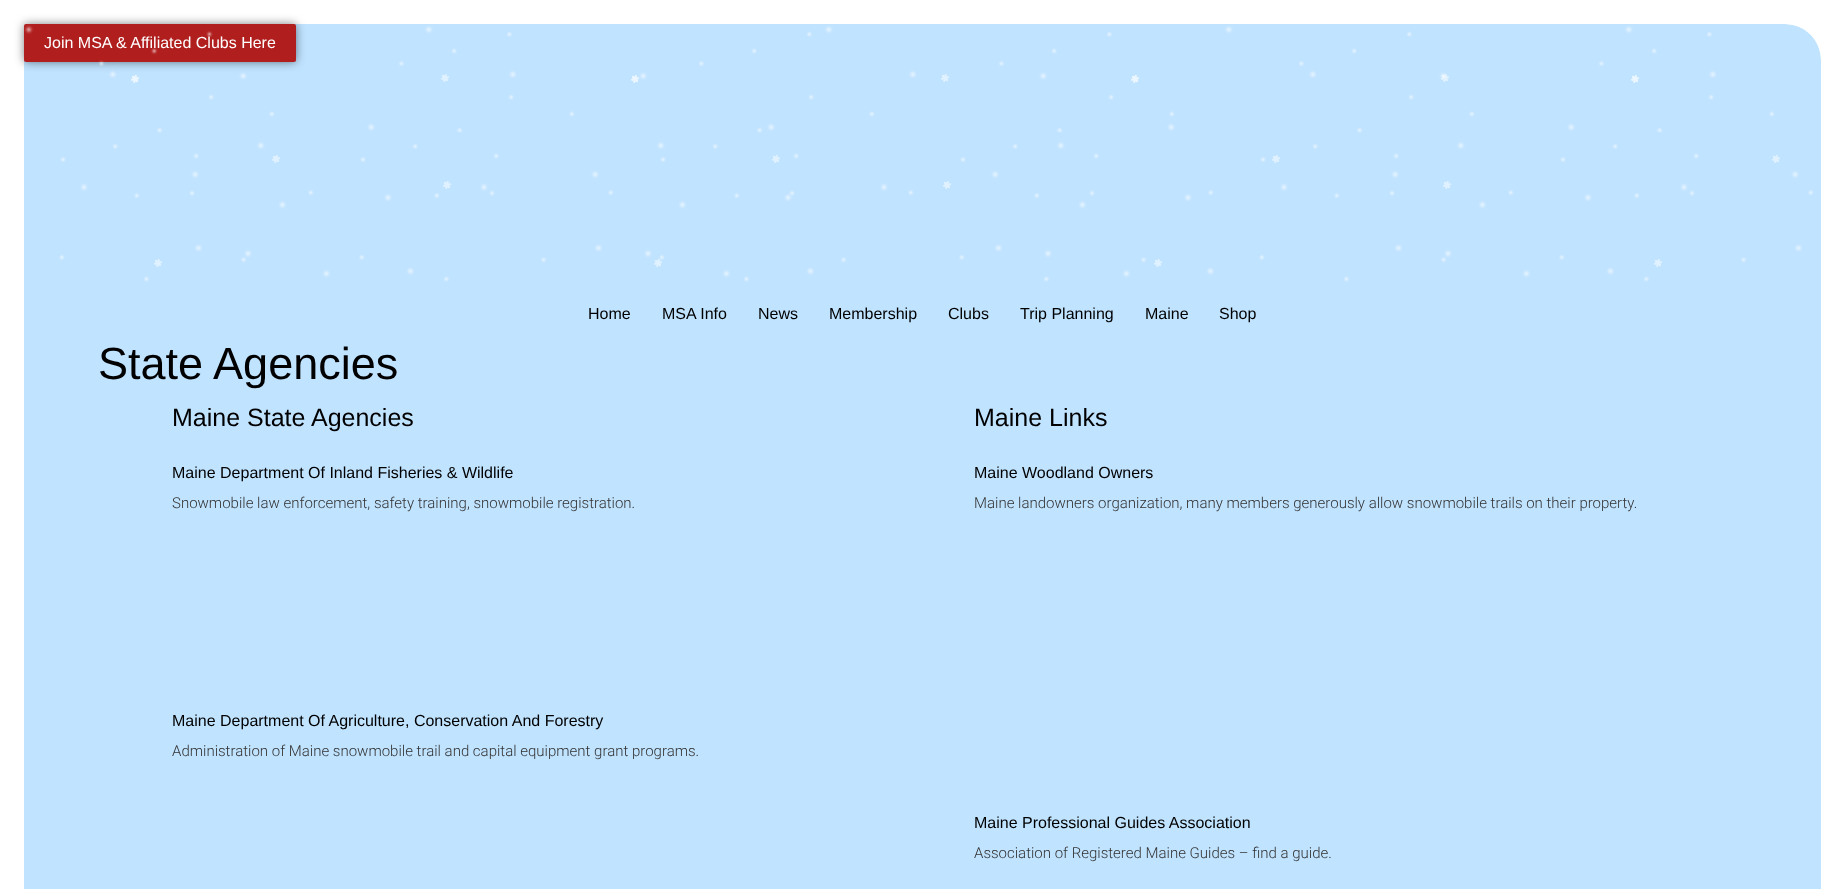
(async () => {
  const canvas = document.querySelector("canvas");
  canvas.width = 1845;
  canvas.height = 889;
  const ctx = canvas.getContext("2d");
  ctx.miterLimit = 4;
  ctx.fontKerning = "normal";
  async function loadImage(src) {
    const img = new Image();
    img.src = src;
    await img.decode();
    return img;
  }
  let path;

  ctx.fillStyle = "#ffffff";
  ctx.fillRect(0, 0, 1845, 889);
  ctx.fillStyle = "#c0e3ff";
  ctx.beginPath();
  ctx.roundRect(24, 24, 1797, 268, [36, 36, 0, 0]);
  ctx.fill();
  ctx.fillStyle = "#ffffff";
  path = new Path2D("M60 0H1785C1818 0 1845 27 1845 60V292H0V60C0 27 27 0 60 0ZM60 24H1785C1805 24 1821 40 1821 60V292H24V60C24 40 40 24 60 24Z");
  ctx.fill(path, "evenodd");
  ctx.fillStyle = "rgba(0, 0, 0, 0.5)";
  ctx.filter = "blur(5px)";
  ctx.beginPath();
  ctx.roundRect(24, 24, 272, 38, 2);
  ctx.fill();
  ctx.filter = "none";
  ctx.fillStyle = "#b11e1e";
  ctx.beginPath();
  ctx.roundRect(24, 24, 272, 38, 2);
  ctx.fill();
  ctx.fillStyle = "#c0e3ff";
  ctx.fillRect(24, 292, 1797, 597);
  ctx.font = "16px Liberation Sans";
  ctx.fillStyle = "#ffffff";
  ctx.fillText("Join MSA & Affiliated Clubs Here", 44, 48);
  ctx.drawImage(await loadImage("img/1.png"), 24, 24, 1790, 258);
  ctx.fillStyle = "#000000";
  for (const [text, x, y] of [
    ["Home", 588, 319],
    ["MSA Info", 662, 319],
    ["News", 758, 319],
    ["Membership", 829, 319],
    ["Clubs", 948, 319],
    ["Trip Planning", 1020, 319],
    ["Maine", 1145, 319],
    ["Shop", 1219, 319],
  ]) {
    ctx.fillText(text, x, y);
  }
  ctx.font = "45px Liberation Sans";
  ctx.fillText("State Agencies", 98, 379);
  ctx.font = "25px Liberation Sans";
  ctx.fillText("Maine State Agencies", 172, 426);
  ctx.font = "16px Liberation Sans";
  ctx.fillText("Maine Department Of Inland Fisheries & Wildlife", 172, 478);
  ctx.font = "300 15px Roboto";
  ctx.fillStyle = "#333333";
  ctx.fillText("Snowmobile law enforcement, safety training, snowmobile registration.", 172, 508);
  ctx.font = "16px Liberation Sans";
  ctx.fillStyle = "#000000";
  ctx.fillText("Maine Department Of Agriculture, Conservation And Forestry", 172, 726);
  ctx.font = "300 15px Roboto";
  ctx.fillStyle = "#333333";
  ctx.fillText("Administration of Maine snowmobile trail and capital equipment grant programs.", 172, 756);
  ctx.font = "25px Liberation Sans";
  ctx.fillStyle = "#000000";
  ctx.fillText("Maine Links", 974, 426);
  ctx.font = "16px Liberation Sans";
  ctx.fillText("Maine Woodland Owners", 974, 478);
  ctx.font = "300 15px Roboto";
  ctx.fillStyle = "#333333";
  ctx.fillText("Maine landowners organization, many members generously allow snowmobile trails on their property.", 974, 508);
  ctx.font = "16px Liberation Sans";
  ctx.fillStyle = "#000000";
  ctx.fillText("Maine Professional Guides Association", 974, 828);
  ctx.font = "300 15px Roboto";
  ctx.fillStyle = "#333333";
  ctx.fillText("Association of Registered Maine Guides – find a guide.", 974, 858);
})();
